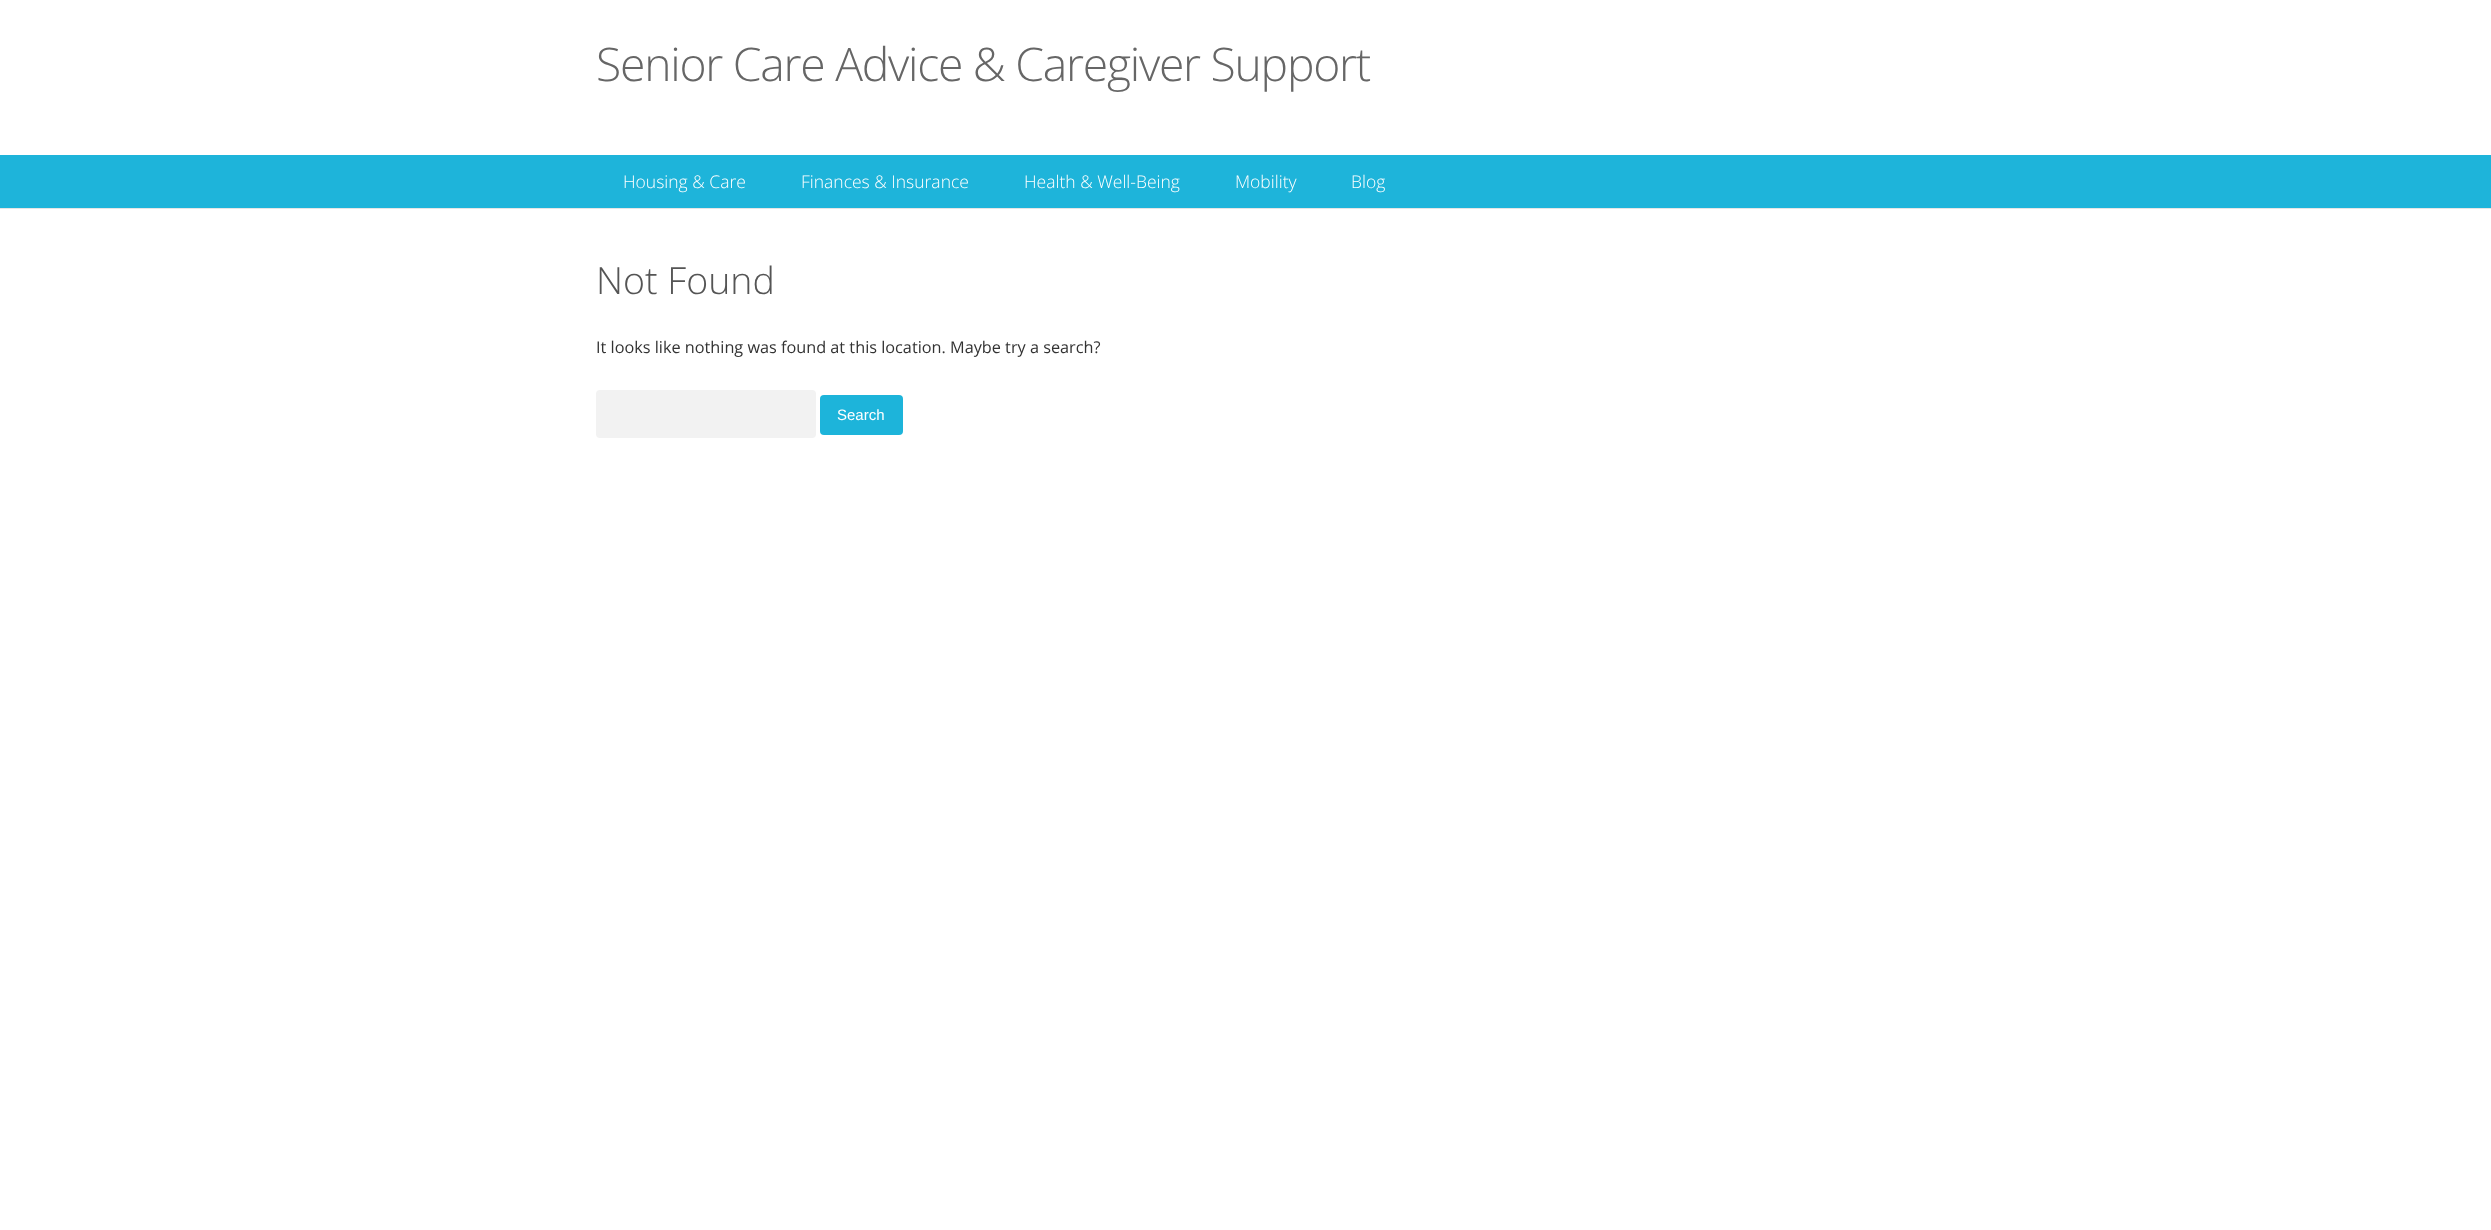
(async () => {
  const canvas = document.querySelector("canvas");
  canvas.width = 2491;
  canvas.height = 1230;
  const ctx = canvas.getContext("2d");
  ctx.miterLimit = 4;
  ctx.fontKerning = "normal";

  ctx.fillStyle = "#ffffff";
  ctx.fillRect(0, 0, 2491, 1230);
  ctx.fillStyle = "rgba(0, 0, 0, 0.1)";
  ctx.filter = "blur(0.5px)";
  ctx.beginPath();
  ctx.rect(0, 1, 2491, 208);
  ctx.fill();
  ctx.filter = "none";
  ctx.fillStyle = "#ffffff";
  ctx.fillRect(0, 0, 2491, 155);
  ctx.fillStyle = "#1eb4da";
  ctx.fillRect(0, 155, 2491, 53);
  ctx.fillStyle = "#f2f2f2";
  ctx.beginPath();
  ctx.roundRect(596, 390, 220, 48, 4);
  ctx.fill();
  ctx.fillStyle = "#1db4da";
  ctx.beginPath();
  ctx.roundRect(820, 395, 83, 40, 4);
  ctx.fill();
  ctx.letterSpacing = "-1.25px";
  ctx.font = "300 46.25px Open Sans";
  ctx.fillStyle = "#666666";
  ctx.fillText("Senior Care Advice & Caregiver Support", 596, 81);
  ctx.letterSpacing = "0px";
  ctx.font = "300 17.5px Open Sans";
  ctx.fillStyle = "#ffffff";
  for (const [text, x, y] of [
    ["Housing & Care", 623, 188],
    ["Finances & Insurance", 801, 188],
    ["Health & Well-Being", 1024, 188],
    ["Mobility", 1235, 188],
    ["Blog", 1351, 188],
  ]) {
    ctx.fillText(text, x, y);
  }
  ctx.font = "300 37.5px Open Sans";
  ctx.fillStyle = "#555555";
  ctx.fillText("Not Found", 596, 294);
  ctx.font = "16.25px Open Sans";
  ctx.fillStyle = "#333333";
  ctx.fillText("It looks like nothing was found at this location. Maybe try a search?", 596, 353);
  ctx.font = "15px Liberation Sans";
  ctx.fillStyle = "#ffffff";
  ctx.fillText("Search", 837, 420);
})();
